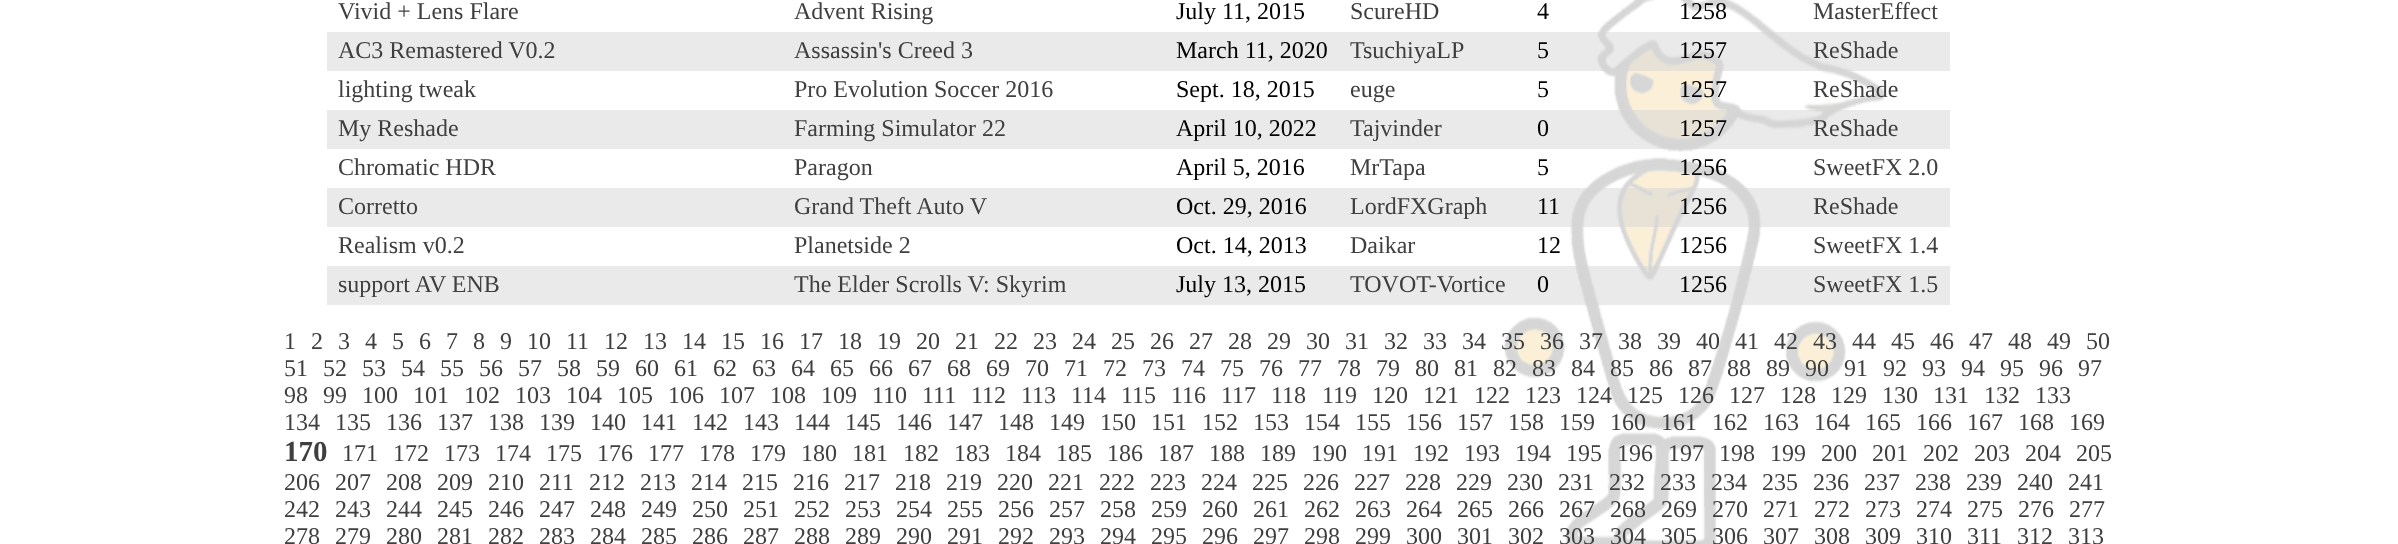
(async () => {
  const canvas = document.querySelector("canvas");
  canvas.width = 2398;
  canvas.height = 544;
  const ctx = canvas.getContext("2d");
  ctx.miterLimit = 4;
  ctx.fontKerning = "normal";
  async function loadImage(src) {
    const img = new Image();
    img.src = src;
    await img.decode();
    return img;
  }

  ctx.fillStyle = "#ffffff";
  ctx.fillRect(0, 0, 2398, 544);
  ctx.drawImage(await loadImage("img/1.png"), 1504, 0, 383, 544);
  for (const [x, y, w, h, color] of [
    [327, 32, 1623, 39, "rgba(213, 213, 213, 0.49)"],
    [327, 110, 1623, 39, "rgba(213, 213, 213, 0.49)"],
    [327, 188, 1623, 39, "rgba(213, 213, 213, 0.49)"],
    [327, 266, 1623, 39, "rgba(213, 213, 213, 0.49)"],
  ]) {
    ctx.fillStyle = color;
    ctx.fillRect(x, y, w, h);
  }
  ctx.font = "24px Liberation Serif";
  ctx.fillStyle = "#3f3f3f";
  ctx.fillText("Vivid + Lens Flare", 338, 19);
  ctx.fillText("Advent Rising", 794, 19);
  ctx.fillStyle = "#000000";
  ctx.fillText("July 11, 2015", 1176, 19);
  ctx.fillStyle = "#3f3f3f";
  ctx.fillText("ScureHD", 1350, 19);
  ctx.fillStyle = "#000000";
  ctx.fillText("4", 1537, 19);
  ctx.fillText("1258", 1679, 19);
  ctx.fillStyle = "#3f3f3f";
  for (const [text, x, y] of [
    ["MasterEffect", 1813, 19],
    ["AC3 Remastered V0.2", 338, 58],
    ["Assassin's Creed 3", 794, 58],
  ]) {
    ctx.fillText(text, x, y);
  }
  ctx.fillStyle = "#000000";
  ctx.fillText("March 11, 2020", 1176, 58);
  ctx.fillStyle = "#3f3f3f";
  ctx.fillText("TsuchiyaLP", 1350, 58);
  ctx.fillStyle = "#000000";
  ctx.fillText("5", 1537, 58);
  ctx.fillText("1257", 1679, 58);
  ctx.fillStyle = "#3f3f3f";
  for (const [text, x, y] of [
    ["ReShade", 1813, 58],
    ["lighting tweak", 338, 97],
    ["Pro Evolution Soccer 2016", 794, 97],
  ]) {
    ctx.fillText(text, x, y);
  }
  ctx.fillStyle = "#000000";
  ctx.fillText("Sept. 18, 2015", 1176, 97);
  ctx.fillStyle = "#3f3f3f";
  ctx.fillText("euge", 1350, 97);
  ctx.fillStyle = "#000000";
  ctx.fillText("5", 1537, 97);
  ctx.fillText("1257", 1679, 97);
  ctx.fillStyle = "#3f3f3f";
  for (const [text, x, y] of [
    ["ReShade", 1813, 97],
    ["My Reshade", 338, 136],
    ["Farming Simulator 22", 794, 136],
  ]) {
    ctx.fillText(text, x, y);
  }
  ctx.fillStyle = "#000000";
  ctx.fillText("April 10, 2022", 1176, 136);
  ctx.fillStyle = "#3f3f3f";
  ctx.fillText("Tajvinder", 1350, 136);
  ctx.fillStyle = "#000000";
  ctx.fillText("0", 1537, 136);
  ctx.fillText("1257", 1679, 136);
  ctx.fillStyle = "#3f3f3f";
  for (const [text, x, y] of [
    ["ReShade", 1813, 136],
    ["Chromatic HDR", 338, 175],
    ["Paragon", 794, 175],
  ]) {
    ctx.fillText(text, x, y);
  }
  ctx.fillStyle = "#000000";
  ctx.fillText("April 5, 2016", 1176, 175);
  ctx.fillStyle = "#3f3f3f";
  ctx.fillText("MrTapa", 1350, 175);
  ctx.fillStyle = "#000000";
  ctx.fillText("5", 1537, 175);
  ctx.fillText("1256", 1679, 175);
  ctx.fillStyle = "#3f3f3f";
  for (const [text, x, y] of [
    ["SweetFX 2.0", 1813, 175],
    ["Corretto", 338, 214],
    ["Grand Theft Auto V", 794, 214],
  ]) {
    ctx.fillText(text, x, y);
  }
  ctx.fillStyle = "#000000";
  ctx.fillText("Oct. 29, 2016", 1176, 214);
  ctx.fillStyle = "#3f3f3f";
  ctx.fillText("LordFXGraph", 1350, 214);
  ctx.fillStyle = "#000000";
  ctx.fillText("11", 1537, 214);
  ctx.fillText("1256", 1679, 214);
  ctx.fillStyle = "#3f3f3f";
  for (const [text, x, y] of [
    ["ReShade", 1813, 214],
    ["Realism v0.2", 338, 253],
    ["Planetside 2", 794, 253],
  ]) {
    ctx.fillText(text, x, y);
  }
  ctx.fillStyle = "#000000";
  ctx.fillText("Oct. 14, 2013", 1176, 253);
  ctx.fillStyle = "#3f3f3f";
  ctx.fillText("Daikar", 1350, 253);
  ctx.fillStyle = "#000000";
  ctx.fillText("12", 1537, 253);
  ctx.fillText("1256", 1679, 253);
  ctx.fillStyle = "#3f3f3f";
  for (const [text, x, y] of [
    ["SweetFX 1.4", 1813, 253],
    ["support AV ENB", 338, 292],
    ["The Elder Scrolls V: Skyrim", 794, 292],
  ]) {
    ctx.fillText(text, x, y);
  }
  ctx.fillStyle = "#000000";
  ctx.fillText("July 13, 2015", 1176, 292);
  ctx.fillStyle = "#3f3f3f";
  ctx.fillText("TOVOT-Vortice", 1350, 292);
  ctx.fillStyle = "#000000";
  ctx.fillText("0", 1537, 292);
  ctx.fillText("1256", 1679, 292);
  ctx.fillStyle = "#3f3f3f";
  for (const [text, x, y] of [
    ["SweetFX 1.5", 1813, 292],
    ["1", 284, 349],
    ["2", 311, 349],
    ["3", 338, 349],
    ["4", 365, 349],
    ["5", 392, 349],
    ["6", 419, 349],
    ["7", 446, 349],
    ["8", 473, 349],
    ["9", 500, 349],
    ["10", 527, 349],
    ["11", 566, 349],
    ["12", 604, 349],
    ["13", 643, 349],
    ["14", 682, 349],
    ["15", 721, 349],
    ["16", 760, 349],
    ["17", 799, 349],
    ["18", 838, 349],
    ["19", 877, 349],
    ["20", 916, 349],
    ["21", 955, 349],
    ["22", 994, 349],
    ["23", 1033, 349],
    ["24", 1072, 349],
    ["25", 1111, 349],
    ["26", 1150, 349],
    ["27", 1189, 349],
    ["28", 1228, 349],
    ["29", 1267, 349],
    ["30", 1306, 349],
    ["31", 1345, 349],
    ["32", 1384, 349],
    ["33", 1423, 349],
    ["34", 1462, 349],
    ["35", 1501, 349],
    ["36", 1540, 349],
    ["37", 1579, 349],
    ["38", 1618, 349],
    ["39", 1657, 349],
    ["40", 1696, 349],
    ["41", 1735, 349],
    ["42", 1774, 349],
    ["43", 1813, 349],
    ["44", 1852, 349],
    ["45", 1891, 349],
    ["46", 1930, 349],
    ["47", 1969, 349],
    ["48", 2008, 349],
    ["49", 2047, 349],
    ["50", 2086, 349],
    ["51", 284, 376],
    ["52", 323, 376],
    ["53", 362, 376],
    ["54", 401, 376],
    ["55", 440, 376],
    ["56", 479, 376],
    ["57", 518, 376],
    ["58", 557, 376],
    ["59", 596, 376],
    ["60", 635, 376],
    ["61", 674, 376],
    ["62", 713, 376],
    ["63", 752, 376],
    ["64", 791, 376],
    ["65", 830, 376],
    ["66", 869, 376],
    ["67", 908, 376],
    ["68", 947, 376],
    ["69", 986, 376],
    ["70", 1025, 376],
    ["71", 1064, 376],
    ["72", 1103, 376],
    ["73", 1142, 376],
    ["74", 1181, 376],
    ["75", 1220, 376],
    ["76", 1259, 376],
    ["77", 1298, 376],
    ["78", 1337, 376],
    ["79", 1376, 376],
    ["80", 1415, 376],
    ["81", 1454, 376],
    ["82", 1493, 376],
    ["83", 1532, 376],
    ["84", 1571, 376],
    ["85", 1610, 376],
    ["86", 1649, 376],
    ["87", 1688, 376],
    ["88", 1727, 376],
    ["89", 1766, 376],
    ["90", 1805, 376],
    ["91", 1844, 376],
    ["92", 1883, 376],
    ["93", 1922, 376],
    ["94", 1961, 376],
    ["95", 2000, 376],
    ["96", 2039, 376],
    ["97", 2078, 376],
    ["98", 284, 403],
    ["99", 323, 403],
    ["100", 362, 403],
    ["101", 413, 403],
    ["102", 464, 403],
    ["103", 515, 403],
    ["104", 566, 403],
    ["105", 617, 403],
    ["106", 668, 403],
    ["107", 719, 403],
    ["108", 770, 403],
    ["109", 821, 403],
    ["110", 872, 403],
    ["111", 922, 403],
    ["112", 971, 403],
    ["113", 1021, 403],
    ["114", 1071, 403],
    ["115", 1121, 403],
    ["116", 1171, 403],
    ["117", 1221, 403],
    ["118", 1271, 403],
    ["119", 1322, 403],
    ["120", 1372, 403],
    ["121", 1423, 403],
    ["122", 1474, 403],
    ["123", 1525, 403],
    ["124", 1576, 403],
    ["125", 1627, 403],
    ["126", 1678, 403],
    ["127", 1729, 403],
    ["128", 1780, 403],
    ["129", 1831, 403],
    ["130", 1882, 403],
    ["131", 1933, 403],
    ["132", 1984, 403],
    ["133", 2035, 403],
    ["134", 284, 430],
    ["135", 335, 430],
    ["136", 386, 430],
    ["137", 437, 430],
    ["138", 488, 430],
    ["139", 539, 430],
    ["140", 590, 430],
    ["141", 641, 430],
    ["142", 692, 430],
    ["143", 743, 430],
    ["144", 794, 430],
    ["145", 845, 430],
    ["146", 896, 430],
    ["147", 947, 430],
    ["148", 998, 430],
    ["149", 1049, 430],
    ["150", 1100, 430],
    ["151", 1151, 430],
    ["152", 1202, 430],
    ["153", 1253, 430],
    ["154", 1304, 430],
    ["155", 1355, 430],
    ["156", 1406, 430],
    ["157", 1457, 430],
    ["158", 1508, 430],
    ["159", 1559, 430],
    ["160", 1610, 430],
    ["161", 1661, 430],
    ["162", 1712, 430],
    ["163", 1763, 430],
    ["164", 1814, 430],
    ["165", 1865, 430],
    ["166", 1916, 430],
    ["167", 1967, 430],
    ["168", 2018, 430],
    ["169", 2069, 430],
  ]) {
    ctx.fillText(text, x, y);
  }
  ctx.font = "bold 29px Liberation Serif";
  ctx.fillText("170", 284, 461);
  ctx.font = "24px Liberation Serif";
  for (const [text, x, y] of [
    ["171", 342, 461],
    ["172", 393, 461],
    ["173", 444, 461],
    ["174", 495, 461],
    ["175", 546, 461],
    ["176", 597, 461],
    ["177", 648, 461],
    ["178", 699, 461],
    ["179", 750, 461],
    ["180", 801, 461],
    ["181", 852, 461],
    ["182", 903, 461],
    ["183", 954, 461],
    ["184", 1005, 461],
    ["185", 1056, 461],
    ["186", 1107, 461],
    ["187", 1158, 461],
    ["188", 1209, 461],
    ["189", 1260, 461],
    ["190", 1311, 461],
    ["191", 1362, 461],
    ["192", 1413, 461],
    ["193", 1464, 461],
    ["194", 1515, 461],
    ["195", 1566, 461],
    ["196", 1617, 461],
    ["197", 1668, 461],
    ["198", 1719, 461],
    ["199", 1770, 461],
    ["200", 1821, 461],
    ["201", 1872, 461],
    ["202", 1923, 461],
    ["203", 1974, 461],
    ["204", 2025, 461],
    ["205", 2076, 461],
    ["206", 284, 490],
    ["207", 335, 490],
    ["208", 386, 490],
    ["209", 437, 490],
    ["210", 488, 490],
    ["211", 539, 490],
    ["212", 589, 490],
    ["213", 640, 490],
    ["214", 691, 490],
    ["215", 742, 490],
    ["216", 793, 490],
    ["217", 844, 490],
    ["218", 895, 490],
    ["219", 946, 490],
    ["220", 997, 490],
    ["221", 1048, 490],
    ["222", 1099, 490],
    ["223", 1150, 490],
    ["224", 1201, 490],
    ["225", 1252, 490],
    ["226", 1303, 490],
    ["227", 1354, 490],
    ["228", 1405, 490],
    ["229", 1456, 490],
    ["230", 1507, 490],
    ["231", 1558, 490],
    ["232", 1609, 490],
    ["233", 1660, 490],
    ["234", 1711, 490],
    ["235", 1762, 490],
    ["236", 1813, 490],
    ["237", 1864, 490],
    ["238", 1915, 490],
    ["239", 1966, 490],
    ["240", 2017, 490],
    ["241", 2068, 490],
    ["242", 284, 517],
    ["243", 335, 517],
    ["244", 386, 517],
    ["245", 437, 517],
    ["246", 488, 517],
    ["247", 539, 517],
    ["248", 590, 517],
    ["249", 641, 517],
    ["250", 692, 517],
    ["251", 743, 517],
    ["252", 794, 517],
    ["253", 845, 517],
    ["254", 896, 517],
    ["255", 947, 517],
    ["256", 998, 517],
    ["257", 1049, 517],
    ["258", 1100, 517],
    ["259", 1151, 517],
    ["260", 1202, 517],
    ["261", 1253, 517],
    ["262", 1304, 517],
    ["263", 1355, 517],
    ["264", 1406, 517],
    ["265", 1457, 517],
    ["266", 1508, 517],
    ["267", 1559, 517],
    ["268", 1610, 517],
    ["269", 1661, 517],
    ["270", 1712, 517],
    ["271", 1763, 517],
    ["272", 1814, 517],
    ["273", 1865, 517],
    ["274", 1916, 517],
    ["275", 1967, 517],
    ["276", 2018, 517],
    ["277", 2069, 517],
    ["278", 284, 544],
    ["279", 335, 544],
    ["280", 386, 544],
    ["281", 437, 544],
    ["282", 488, 544],
    ["283", 539, 544],
    ["284", 590, 544],
    ["285", 641, 544],
    ["286", 692, 544],
    ["287", 743, 544],
    ["288", 794, 544],
    ["289", 845, 544],
    ["290", 896, 544],
    ["291", 947, 544],
    ["292", 998, 544],
    ["293", 1049, 544],
    ["294", 1100, 544],
    ["295", 1151, 544],
    ["296", 1202, 544],
    ["297", 1253, 544],
    ["298", 1304, 544],
    ["299", 1355, 544],
    ["300", 1406, 544],
    ["301", 1457, 544],
    ["302", 1508, 544],
    ["303", 1559, 544],
    ["304", 1610, 544],
    ["305", 1661, 544],
    ["306", 1712, 544],
    ["307", 1763, 544],
    ["308", 1814, 544],
    ["309", 1865, 544],
    ["310", 1916, 544],
    ["311", 1967, 544],
    ["312", 2017, 544],
    ["313", 2068, 544],
  ]) {
    ctx.fillText(text, x, y);
  }
})();
